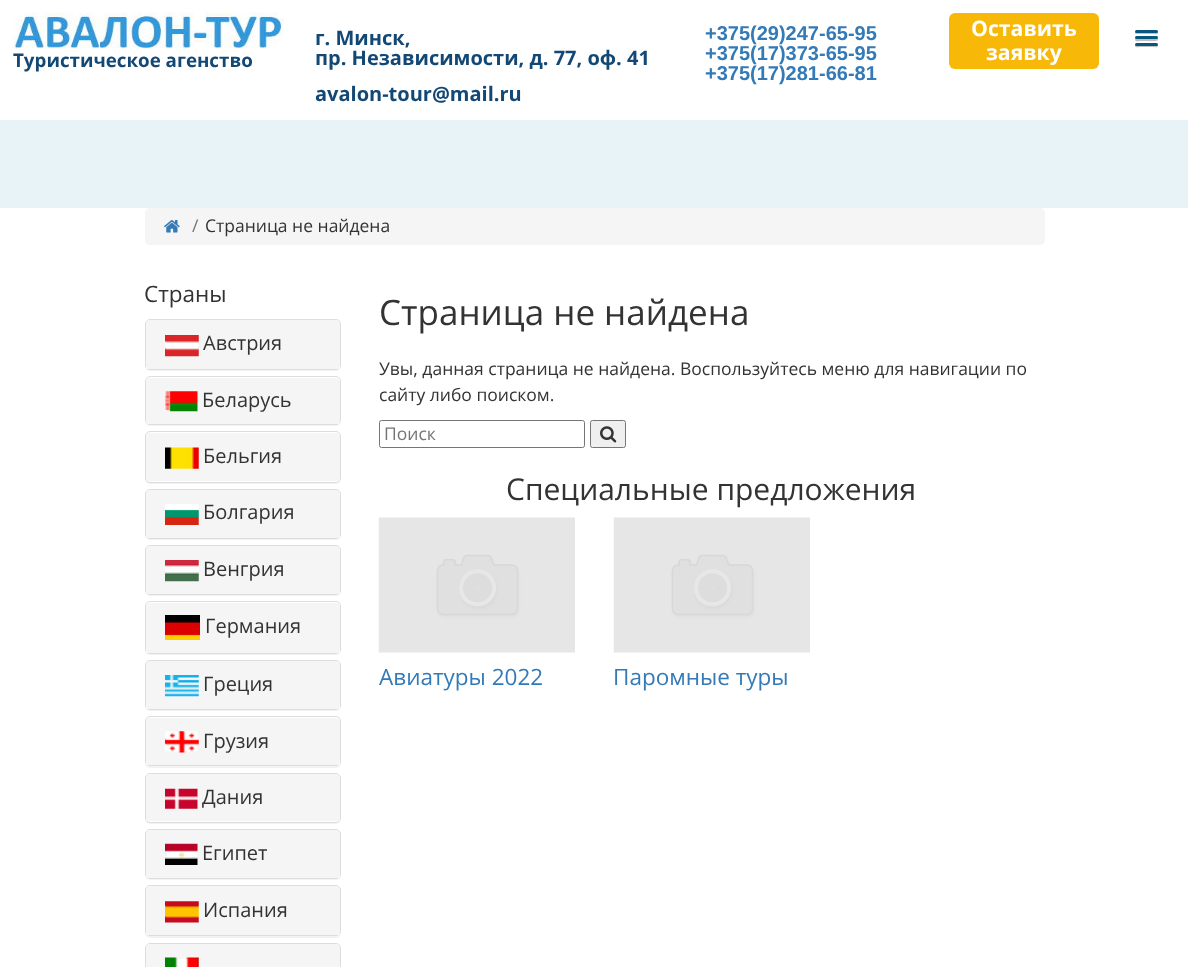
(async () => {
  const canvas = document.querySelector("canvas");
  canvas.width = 1188;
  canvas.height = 967;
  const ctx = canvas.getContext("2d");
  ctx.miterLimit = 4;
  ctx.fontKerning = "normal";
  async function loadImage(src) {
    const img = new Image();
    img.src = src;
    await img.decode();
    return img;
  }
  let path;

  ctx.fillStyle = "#ffffff";
  ctx.fillRect(0, 0, 1188, 967);
  ctx.drawImage(await loadImage("img/1.png"), 12, 12, 272, 37);
  ctx.fillStyle = "#f7b807";
  ctx.beginPath();
  ctx.roundRect(949, 13, 150, 56, 6);
  ctx.fill();
  ctx.fillStyle = "#bfbfbf";
  path = new Path2D("M1135 32C1134 34.5 1139 34 1140 34H1153C1154 34 1157.5 35 1158 33C1158 32.5 1158 31.5 1157.5 31.5C1157.5 32 1157 32.5 1156 32.5H1136C1136 32.5 1135.5 32 1135 32Z");
  ctx.fill(path);
  ctx.fillStyle = "#08577f";
  ctx.beginPath();
  ctx.roundRect(1135, 30, 23, 3, 1.5);
  ctx.fill();
  ctx.fillStyle = "#bfbfbf";
  path = new Path2D("M1135.5 38.5L1135 40C1135.5 42 1139 41 1140 41H1143C1145 41 1156.5 41.5 1157.5 40.5C1158 40 1158 39 1157.5 38L1156.5 38.5C1154.5 39 1136 39 1135.5 38.5Z");
  ctx.fill(path);
  ctx.fillStyle = "#08577f";
  ctx.beginPath();
  ctx.roundRect(1135, 36, 23, 3, 1.5);
  ctx.fill();
  ctx.fillStyle = "#bfbfbf";
  path = new Path2D("M1135.5 44.5L1135 46C1135.5 48 1139 47 1140 47H1153C1154.5 47 1158 48 1158 45.5L1157.5 44.5L1156.5 45C1154.5 45.5 1136 45.5 1135.5 44.5Z");
  ctx.fill(path);
  ctx.fillStyle = "#08577f";
  ctx.beginPath();
  ctx.roundRect(1135, 43, 23, 3, 1.5);
  ctx.fill();
  ctx.fillStyle = "#e8f3f8";
  ctx.fillRect(0, 120, 1188, 88);
  ctx.fillStyle = "#f5f5f5";
  ctx.beginPath();
  ctx.roundRect(145, 208, 900, 37, 5);
  ctx.fill();
  ctx.drawImage(await loadImage("img/2.png"), 164, 220, 16, 13);
  ctx.fillStyle = "rgba(0, 0, 0, 0.05)";
  ctx.filter = "blur(0.5px)";
  ctx.beginPath();
  ctx.roundRect(145, 320, 196, 51, 5);
  ctx.fill();
  ctx.filter = "none";
  ctx.beginPath();
  ctx.roundRect(145.5, 319.5, 195, 50, 4.5);
  ctx.strokeStyle = "#dddddd";
  ctx.stroke();
  ctx.fillStyle = "#f5f5f5";
  ctx.beginPath();
  ctx.roundRect(146, 320, 194, 49, [4, 4, 0, 0]);
  ctx.fill();
  ctx.drawImage(await loadImage("img/3.png"), 165, 335, 34, 22);
  ctx.fillStyle = "rgba(0, 0, 0, 0.05)";
  ctx.filter = "blur(0.5px)";
  ctx.beginPath();
  ctx.roundRect(145, 378, 196, 48, 5);
  ctx.fill();
  ctx.filter = "none";
  ctx.fillStyle = "#ffffff";
  ctx.beginPath();
  ctx.roundRect(145.5, 376.5, 195, 48, 4.5);
  ctx.fill();
  ctx.stroke();
  ctx.fillStyle = "#f5f5f5";
  ctx.beginPath();
  ctx.roundRect(146, 378, 194, 46, [4, 4, 0, 0]);
  ctx.fill();
  ctx.drawImage(await loadImage("img/4.png"), 165, 391, 33, 21);
  ctx.fillStyle = "rgba(0, 0, 0, 0.05)";
  ctx.filter = "blur(0.5px)";
  ctx.beginPath();
  ctx.roundRect(145, 433, 196, 51, 5);
  ctx.fill();
  ctx.filter = "none";
  ctx.fillStyle = "#ffffff";
  ctx.beginPath();
  ctx.roundRect(145.5, 431.5, 195, 51, 4.5);
  ctx.fill();
  ctx.stroke();
  ctx.fillStyle = "#f5f5f5";
  ctx.beginPath();
  ctx.roundRect(146, 433, 194, 48, [4, 4, 0, 0]);
  ctx.fill();
  ctx.drawImage(await loadImage("img/5.png"), 165, 447, 34, 22);
  ctx.fillStyle = "rgba(0, 0, 0, 0.05)";
  ctx.filter = "blur(0.5px)";
  ctx.beginPath();
  ctx.roundRect(145, 490, 196, 50, 5);
  ctx.fill();
  ctx.filter = "none";
  ctx.beginPath();
  ctx.roundRect(145.5, 489.5, 195, 49, 4.5);
  ctx.stroke();
  ctx.fillStyle = "#f5f5f5";
  ctx.beginPath();
  ctx.roundRect(146, 490, 194, 48, [4, 4, 0, 0]);
  ctx.fill();
  ctx.drawImage(await loadImage("img/6.png"), 165, 504, 34, 21);
  ctx.fillStyle = "rgba(0, 0, 0, 0.05)";
  ctx.filter = "blur(0.5px)";
  ctx.beginPath();
  ctx.roundRect(145, 546, 196, 50, 5);
  ctx.fill();
  ctx.filter = "none";
  ctx.beginPath();
  ctx.roundRect(145.5, 545.5, 195, 49, 4.5);
  ctx.stroke();
  ctx.fillStyle = "#f5f5f5";
  ctx.beginPath();
  ctx.roundRect(146, 546, 194, 48, [4, 4, 0, 0]);
  ctx.fill();
  ctx.drawImage(await loadImage("img/7.png"), 165, 560, 34, 22);
  ctx.fillStyle = "rgba(0, 0, 0, 0.05)";
  ctx.filter = "blur(0.5px)";
  ctx.beginPath();
  ctx.roundRect(145, 603, 196, 52, 5);
  ctx.fill();
  ctx.filter = "none";
  ctx.fillStyle = "#ffffff";
  ctx.beginPath();
  ctx.roundRect(145.5, 601.5, 195, 52, 4.5);
  ctx.fill();
  ctx.stroke();
  ctx.fillStyle = "#f5f5f5";
  ctx.beginPath();
  ctx.roundRect(146, 603, 194, 50, [4, 4, 0, 0]);
  ctx.fill();
  ctx.drawImage(await loadImage("img/8.png"), 165, 615, 35, 25);
  ctx.fillStyle = "rgba(0, 0, 0, 0.05)";
  ctx.filter = "blur(0.5px)";
  ctx.beginPath();
  ctx.roundRect(145, 661, 196, 50, 5);
  ctx.fill();
  ctx.filter = "none";
  ctx.beginPath();
  ctx.roundRect(145.5, 660.5, 195, 49, 4.5);
  ctx.stroke();
  ctx.fillStyle = "#f5f5f5";
  ctx.beginPath();
  ctx.roundRect(146, 661, 194, 48, [4, 4, 0, 0]);
  ctx.fill();
  ctx.drawImage(await loadImage("img/9.png"), 165, 675, 34, 22);
  ctx.fillStyle = "rgba(0, 0, 0, 0.05)";
  ctx.filter = "blur(0.5px)";
  ctx.beginPath();
  ctx.roundRect(145, 718, 196, 50, 5);
  ctx.fill();
  ctx.filter = "none";
  ctx.fillStyle = "#ffffff";
  ctx.beginPath();
  ctx.roundRect(145.5, 716.5, 195, 49, 4.5);
  ctx.fill();
  ctx.stroke();
  ctx.fillStyle = "#f5f5f5";
  ctx.beginPath();
  ctx.roundRect(146, 718, 194, 47, [4, 4, 0, 0]);
  ctx.fill();
  ctx.drawImage(await loadImage("img/10.png"), 165, 731, 34, 22);
  ctx.fillStyle = "rgba(0, 0, 0, 0.05)";
  ctx.filter = "blur(0.5px)";
  ctx.beginPath();
  ctx.roundRect(145, 774, 196, 50, 5);
  ctx.fill();
  ctx.filter = "none";
  ctx.fillStyle = "#ffffff";
  ctx.beginPath();
  ctx.roundRect(145.5, 773.5, 195, 49, 4.5);
  ctx.fill();
  ctx.stroke();
  ctx.fillStyle = "#f5f5f5";
  ctx.beginPath();
  ctx.roundRect(146, 774, 194, 47, [4, 4, 0, 0]);
  ctx.fill();
  ctx.drawImage(await loadImage("img/11.png"), 165, 788, 33, 21);
  ctx.fillStyle = "rgba(0, 0, 0, 0.05)";
  ctx.filter = "blur(0.5px)";
  ctx.beginPath();
  ctx.roundRect(145, 830, 196, 50, 5);
  ctx.fill();
  ctx.filter = "none";
  ctx.beginPath();
  ctx.roundRect(145.5, 829.5, 195, 49, 4.5);
  ctx.stroke();
  ctx.fillStyle = "#f5f5f5";
  ctx.beginPath();
  ctx.roundRect(146, 830, 194, 48, [4, 4, 0, 0]);
  ctx.fill();
  ctx.drawImage(await loadImage("img/12.png"), 165, 843, 33, 22);
  ctx.fillStyle = "rgba(0, 0, 0, 0.05)";
  ctx.filter = "blur(0.5px)";
  ctx.beginPath();
  ctx.roundRect(145, 886, 196, 52, 5);
  ctx.fill();
  ctx.filter = "none";
  ctx.beginPath();
  ctx.roundRect(145.5, 885.5, 195, 50, 4.5);
  ctx.stroke();
  ctx.fillStyle = "#f5f5f5";
  ctx.beginPath();
  ctx.roundRect(146, 886, 194, 49, [4, 4, 0, 0]);
  ctx.fill();
  ctx.drawImage(await loadImage("img/13.png"), 165, 901, 34, 22);
  ctx.beginPath();
  ctx.roundRect(145.5, 943.5, 195, 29, 4.5);
  ctx.stroke();
  path = new Path2D("M150 944H336C338 944 340 946 340 948V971H146V948C146 946 148 944 150 944Z");
  ctx.fill(path);
  ctx.drawImage(await loadImage("img/14.png"), 165, 957, 34, 10);
  ctx.beginPath();
  ctx.roundRect(379.5, 420.5, 205, 27, 2);
  ctx.strokeStyle = "#767676";
  ctx.stroke();
  ctx.fillStyle = "#efefef";
  ctx.beginPath();
  ctx.roundRect(590.5, 420.5, 35, 27, 2);
  ctx.fill();
  ctx.stroke();
  ctx.drawImage(await loadImage("img/15.png"), 600, 426, 17, 17);
  ctx.drawImage(await loadImage("img/16.png"), 378, 517, 197, 136);
  ctx.drawImage(await loadImage("img/16.png"), 613, 517, 197, 136);
  ctx.font = "bold 18.75px Open Sans";
  ctx.fillStyle = "#134875";
  ctx.fillText("Туристическое агенство", 13, 67);
  ctx.font = "bold 20px Open Sans";
  for (const [text, x, y] of [
    ["г. Минск,", 315, 45],
    ["пр. Независимости, д. 77, оф. 41", 315, 65],
    ["avalon-tour@mail.ru", 315, 101],
  ]) {
    ctx.fillText(text, x, y);
  }
  ctx.font = "bold 20px Liberation Sans";
  ctx.fillStyle = "#337ab7";
  for (const [text, x, y] of [
    ["+375(29)247-65-95", 705, 40],
    ["+375(17)373-65-95", 705, 60],
    ["+375(17)281-66-81", 705, 80],
  ]) {
    ctx.fillText(text, x, y);
  }
  ctx.font = "bold 21.25px Open Sans";
  ctx.fillStyle = "#ffffff";
  ctx.fillText("Оставить", 971, 36);
  ctx.fillText("заявку", 986, 60);
  ctx.font = "17.5px Open Sans";
  ctx.fillStyle = "#6c757d";
  ctx.fillText("/", 192, 232);
  ctx.fillStyle = "#333333";
  ctx.fillText("Страница не найдена", 205, 232);
  ctx.font = "22.5px Open Sans";
  ctx.fillText("Страны", 144, 302);
  ctx.font = "20px Open Sans";
  for (const [text, x, y] of [
    ["Австрия", 203, 350],
    ["Беларусь", 202, 407],
    ["Бельгия", 203, 463],
    ["Болгария", 203, 519],
    ["Венгрия", 203, 576],
    ["Германия", 205, 633],
    ["Греция", 203, 691],
    ["Грузия", 203, 748],
    ["Дания", 202, 804],
    ["Египет", 202, 860],
    ["Испания", 203, 917],
  ]) {
    ctx.fillText(text, x, y);
  }
  ctx.font = "35px Open Sans";
  ctx.fillText("Страница не найдена", 379, 325);
  ctx.font = "17.5px Open Sans";
  ctx.fillText("Увы, данная страница не найдена. Воспользуйтесь меню для навигации по", 379, 375);
  ctx.fillText("сайту либо поиском.", 379, 401);
  ctx.fillStyle = "#757575";
  ctx.fillText("Поиск", 384, 440);
  ctx.font = "30px Open Sans";
  ctx.fillStyle = "#333333";
  ctx.fillText("Специальные предложения", 506, 500);
  ctx.font = "22.5px Open Sans";
  ctx.fillStyle = "#337ab7";
  ctx.fillText("Авиатуры 2022", 379, 685);
  ctx.fillText("Паромные туры", 613, 685);
})();
